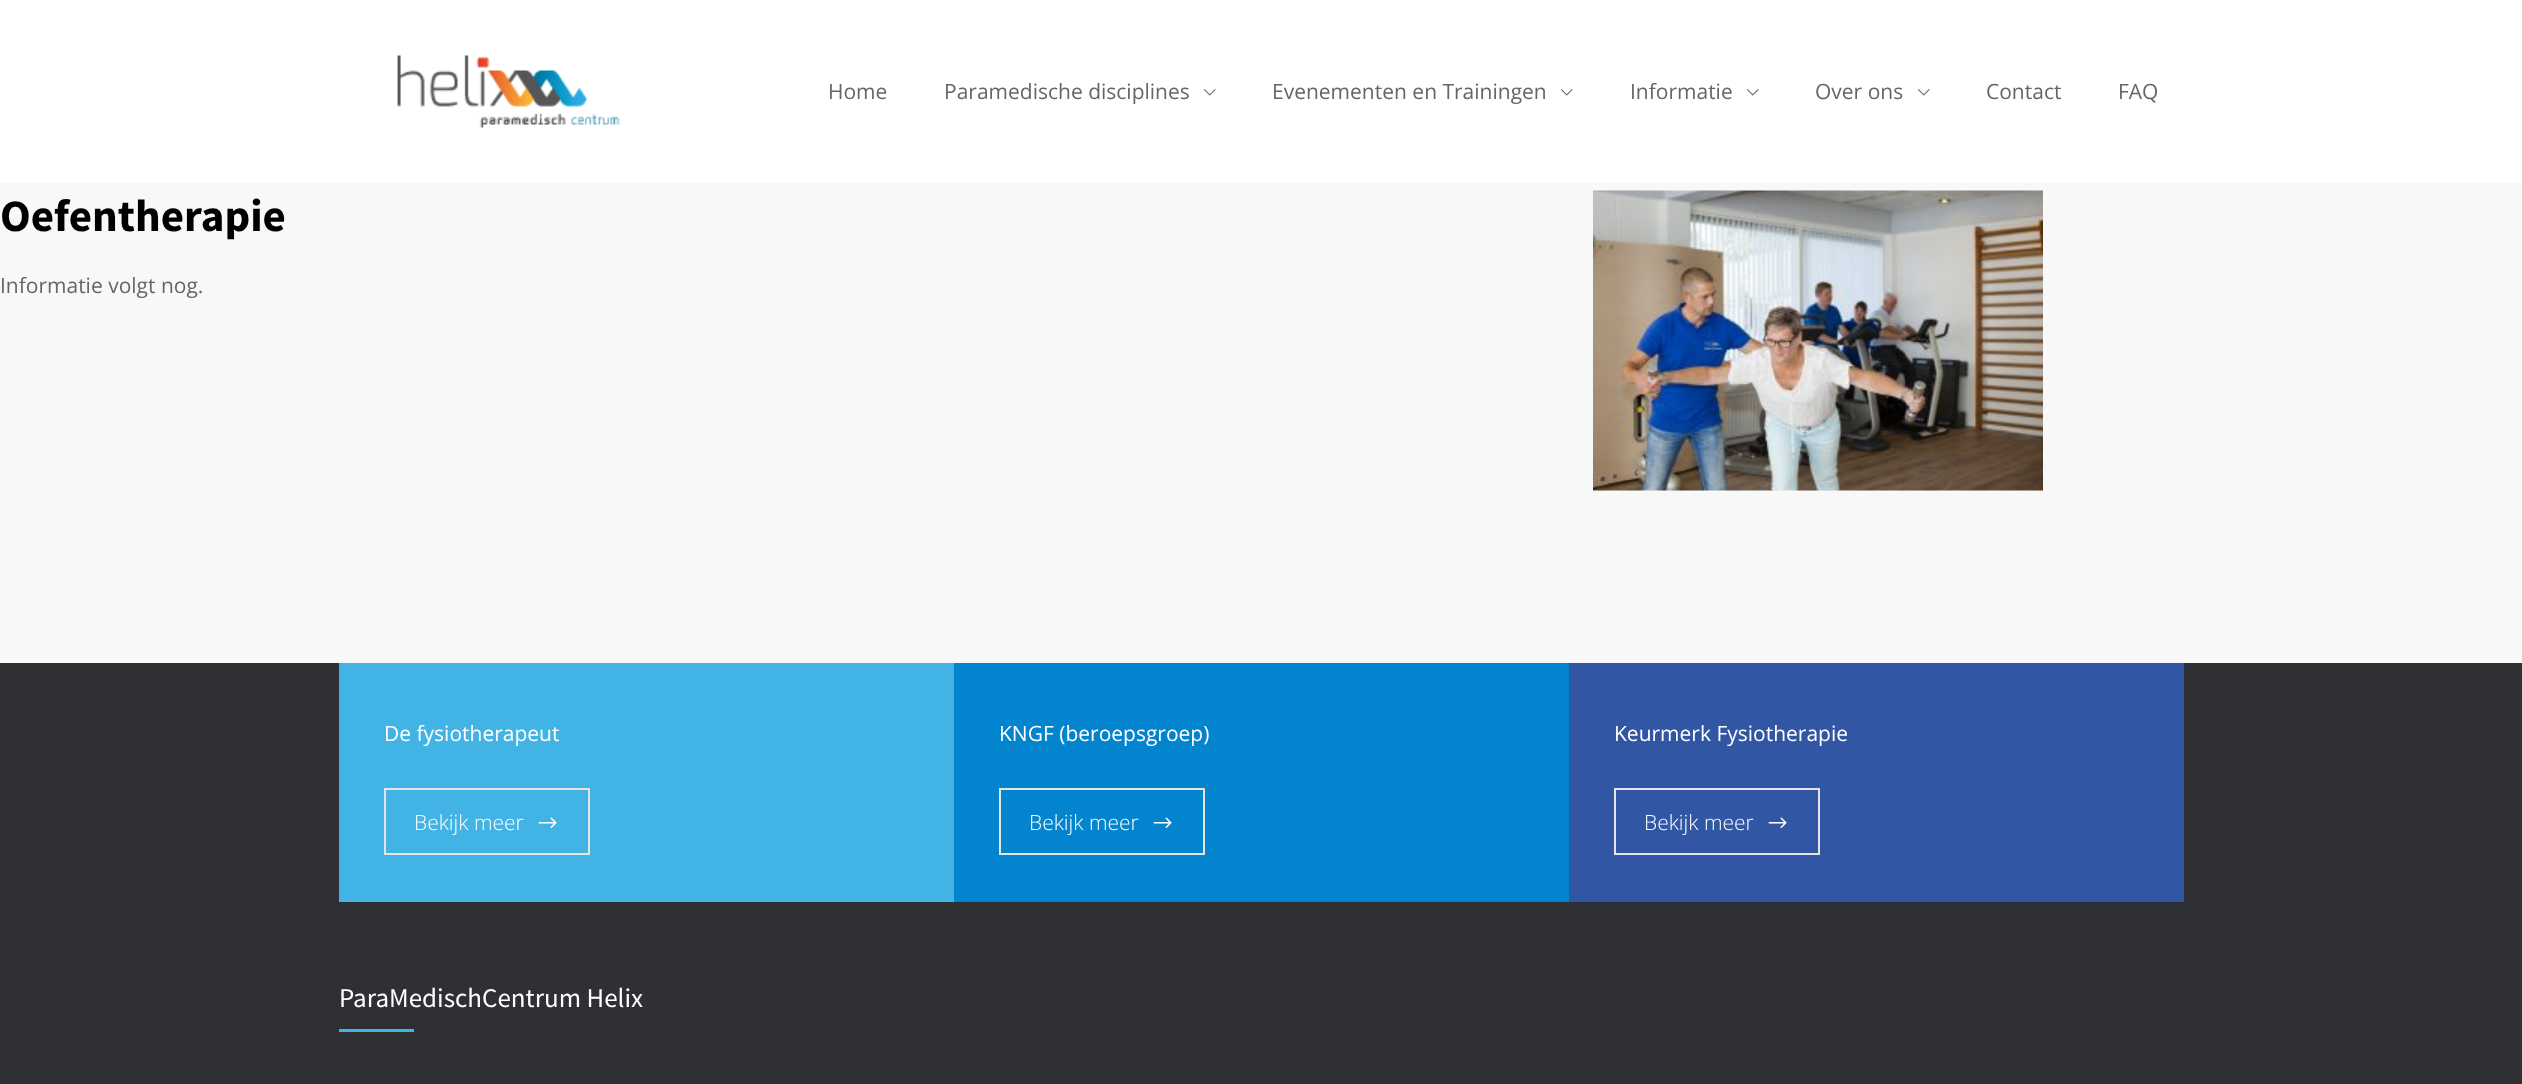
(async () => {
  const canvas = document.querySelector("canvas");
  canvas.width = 2522;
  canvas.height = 1084;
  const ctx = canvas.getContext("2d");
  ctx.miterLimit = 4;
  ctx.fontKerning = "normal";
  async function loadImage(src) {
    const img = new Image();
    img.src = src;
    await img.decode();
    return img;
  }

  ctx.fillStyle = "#f8f8f8";
  ctx.fillRect(0, 0, 2522, 1084);
  ctx.fillStyle = "#ffffff";
  ctx.fillRect(0, 0, 2522, 183);
  ctx.drawImage(await loadImage("img/1.png"), 397, 55, 223, 73);
  ctx.drawImage(await loadImage("img/2.png"), 1203, 89, 13, 7);
  ctx.drawImage(await loadImage("img/2.png"), 1560, 89, 13, 7);
  ctx.drawImage(await loadImage("img/2.png"), 1746, 89, 13, 7);
  ctx.drawImage(await loadImage("img/2.png"), 1917, 89, 13, 7);
  ctx.drawImage(await loadImage("img/3.png"), 1593, 190, 450, 301);
  ctx.fillStyle = "#2e3033";
  ctx.fillRect(0, 663, 2522, 421);
  ctx.fillStyle = "#42b3e5";
  ctx.fillRect(339, 663, 615, 239);
  ctx.strokeStyle = "#e5e5e5";
  ctx.lineWidth = 2;
  ctx.strokeRect(385, 789, 204, 65);
  ctx.drawImage(await loadImage("img/4.png"), 538, 817, 19, 11);
  ctx.fillStyle = "#0384ce";
  ctx.fillRect(954, 663, 615, 239);
  ctx.strokeRect(1000, 789, 204, 65);
  ctx.drawImage(await loadImage("img/5.png"), 1153, 817, 19, 11);
  ctx.fillStyle = "#3156a3";
  ctx.fillRect(1569, 663, 615, 239);
  ctx.strokeRect(1615, 789, 204, 65);
  ctx.drawImage(await loadImage("img/6.png"), 1768, 817, 19, 11);
  ctx.fillStyle = "#42b3e5";
  ctx.fillRect(339, 1029, 75, 3);
  ctx.font = "21px Open Sans";
  ctx.fillStyle = "#666666";
  for (const [text, x, y] of [
    ["Home", 828, 99],
    ["Paramedische disciplines", 944, 99],
    ["Evenementen en Trainingen", 1272, 99],
    ["Informatie", 1630, 99],
    ["Over ons", 1815, 99],
    ["Contact", 1986, 99],
    ["FAQ", 2118, 99],
  ]) {
    ctx.fillText(text, x, y);
  }
  ctx.font = "bold 45px Source Sans Pro";
  ctx.fillStyle = "#000000";
  ctx.fillText("Oefentherapie", 0, 231);
  ctx.font = "21px Open Sans";
  ctx.fillStyle = "#666666";
  ctx.fillText("Informatie volgt nog.", 0, 293);
  ctx.fillStyle = "#ffffff";
  ctx.fillText("De fysiotherapeut", 384, 741);
  ctx.font = "300 21px Open Sans";
  ctx.fillText("Bekijk meer", 414, 830);
  ctx.font = "21px Open Sans";
  ctx.fillText("KNGF (beroepsgroep)", 999, 741);
  ctx.font = "300 21px Open Sans";
  ctx.fillText("Bekijk meer", 1029, 830);
  ctx.font = "21px Open Sans";
  ctx.fillText("Keurmerk Fysiotherapie", 1614, 741);
  ctx.font = "300 21px Open Sans";
  ctx.fillText("Bekijk meer", 1644, 830);
  ctx.font = "27px Source Sans Pro";
  ctx.fillText("ParaMedischCentrum Helix", 339, 1007);
})();
